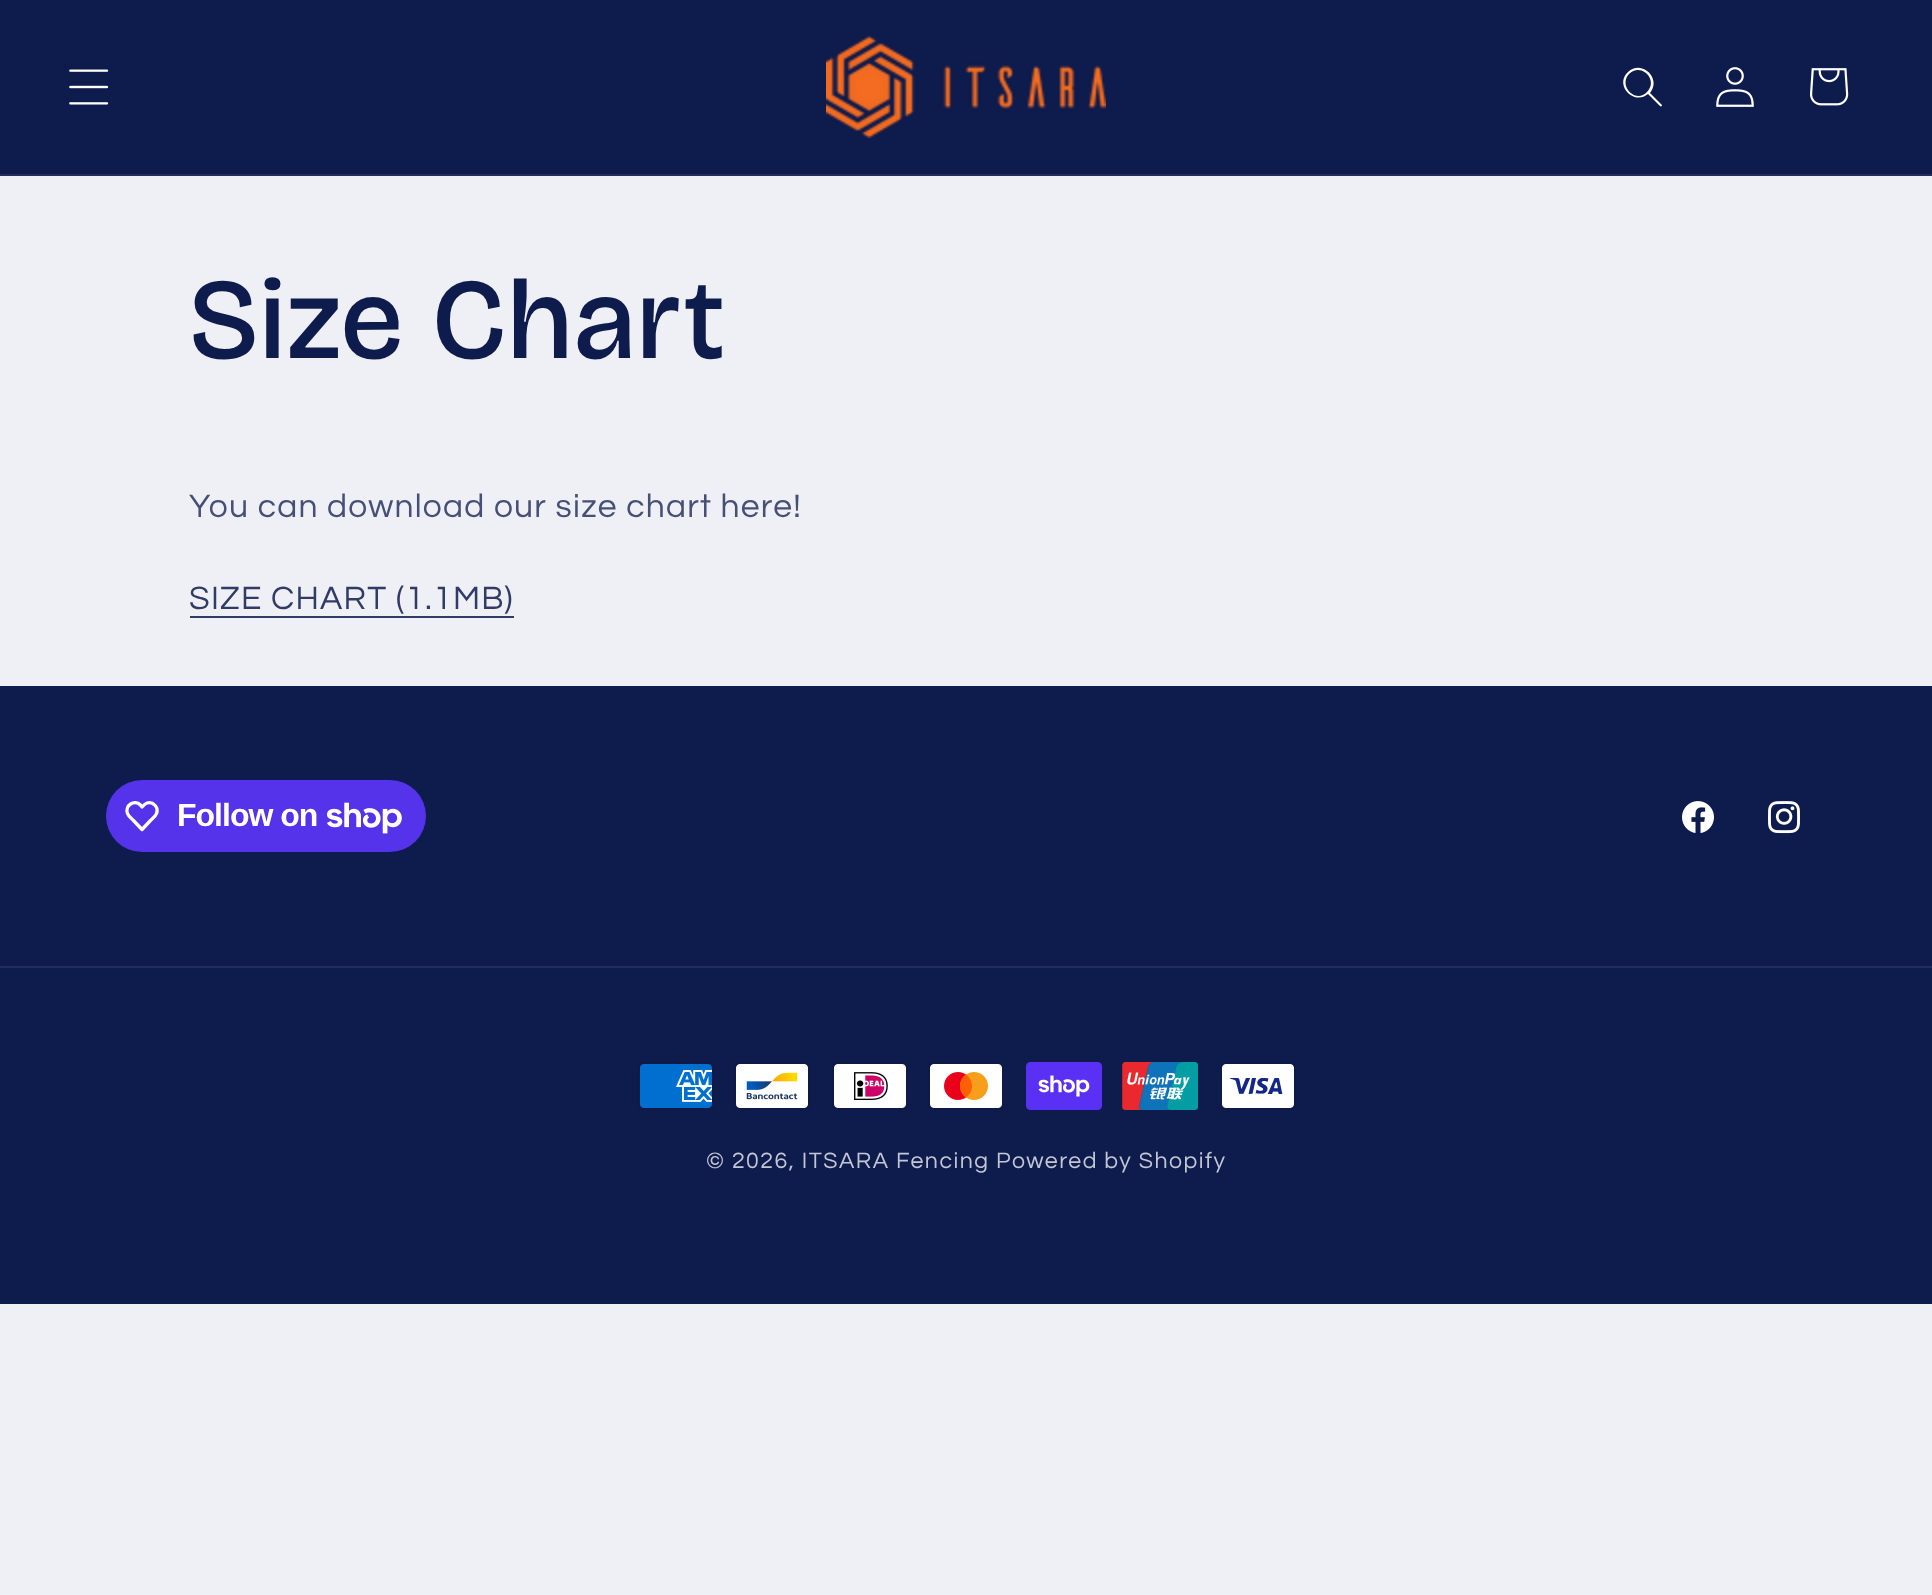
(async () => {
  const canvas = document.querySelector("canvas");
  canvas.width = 1932;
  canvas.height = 1595;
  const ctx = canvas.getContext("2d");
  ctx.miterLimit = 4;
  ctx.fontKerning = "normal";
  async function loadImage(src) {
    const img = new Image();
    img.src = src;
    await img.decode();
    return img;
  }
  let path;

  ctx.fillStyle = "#eff0f5";
  ctx.fillRect(0, 0, 1932, 1595);
  ctx.fillStyle = "#0e1b4d";
  ctx.fillRect(0, 0, 1932, 174);
  ctx.fillStyle = "#212d5b";
  ctx.fillRect(0, 174, 1932, 2);
  ctx.drawImage(await loadImage("img/1.png"), 69, 69, 40, 36);
  ctx.drawImage(await loadImage("img/2.png"), 826, 36, 280, 102);
  ctx.fillStyle = "#ffffff";
  path = new Path2D("M1647 92C1636 104 1618 86 1629 74C1641 62 1659 80 1647 92M1648 94C1634 106 1614 85 1628 72C1642 59 1662 79 1650 93L1662 105C1662 106 1661 107 1660 106Z");
  ctx.fill(path, "evenodd");
  ctx.drawImage(await loadImage("img/3.png"), 1716, 67, 38, 40);
  ctx.drawImage(await loadImage("img/4.png"), 1810, 68, 39, 38);
  ctx.fillStyle = "#303b66";
  ctx.fillRect(190, 616, 324, 2);
  ctx.fillStyle = "#0e1b4d";
  ctx.fillRect(0, 686, 1932, 618);
  ctx.fillStyle = "#5433eb";
  ctx.beginPath();
  ctx.roundRect(106, 780, 320, 72, 36);
  ctx.fill();
  path = new Path2D("M140.5 805L142 807C143.5 805.5 145 803.5 147 803C153 801 159 807.5 156.5 813.5C155.5 816.5 152.5 818.5 150.5 820.5L142 829.5L133.5 820.5C131.5 818.5 128.5 816.5 127.5 813.5C124.5 805.5 134.5 799 140.5 805Z");
  ctx.strokeStyle = "#ffffff";
  ctx.lineWidth = 3.3;
  ctx.lineJoin = "round";
  ctx.stroke(path);
  ctx.drawImage(await loadImage("img/5.png"), 327, 802, 75, 32);
  ctx.drawImage(await loadImage("img/6.png"), 1682, 801, 32, 32);
  ctx.drawImage(await loadImage("img/7.png"), 1768, 801, 32, 33);
  ctx.fillStyle = "#212d5b";
  ctx.fillRect(0, 966, 1932, 2);
  ctx.drawImage(await loadImage("img/8.png"), 638, 1062, 76, 48);
  ctx.drawImage(await loadImage("img/9.png"), 734, 1062, 76, 48);
  ctx.drawImage(await loadImage("img/10.png"), 832, 1062, 76, 48);
  ctx.drawImage(await loadImage("img/11.png"), 928, 1062, 76, 48);
  ctx.drawImage(await loadImage("img/12.png"), 1026, 1062, 76, 48);
  ctx.drawImage(await loadImage("img/13.png"), 1122, 1062, 76, 48);
  ctx.drawImage(await loadImage("img/14.png"), 1220, 1062, 76, 48);
  ctx.letterSpacing = "1.25px";
  ctx.font = "500 114.5px Bricolage Grotesque";
  ctx.fillStyle = "#0e1b4d";
  ctx.fillText("Size Chart", 189, 358);
  ctx.font = "33.6px Questrial";
  ctx.fillStyle = "#465077";
  ctx.fillText("You can download our size chart here!", 189, 517);
  ctx.fillStyle = "#303b66";
  ctx.fillText("SIZE CHART (1.1MB)", 189, 609);
  ctx.letterSpacing = "-1px";
  ctx.font = "bold 32px Liberation Sans";
  ctx.fillStyle = "#ffffff";
  ctx.fillText("Follow on", 177, 826);
  ctx.letterSpacing = "1.5px";
  ctx.font = "23.1px Questrial";
  ctx.fillStyle = "#c3c6d3";
  ctx.fillText("© 2026, ITSARA Fencing", 706, 1168);
  ctx.fillText("Powered by Shopify", 996, 1168);
})();
